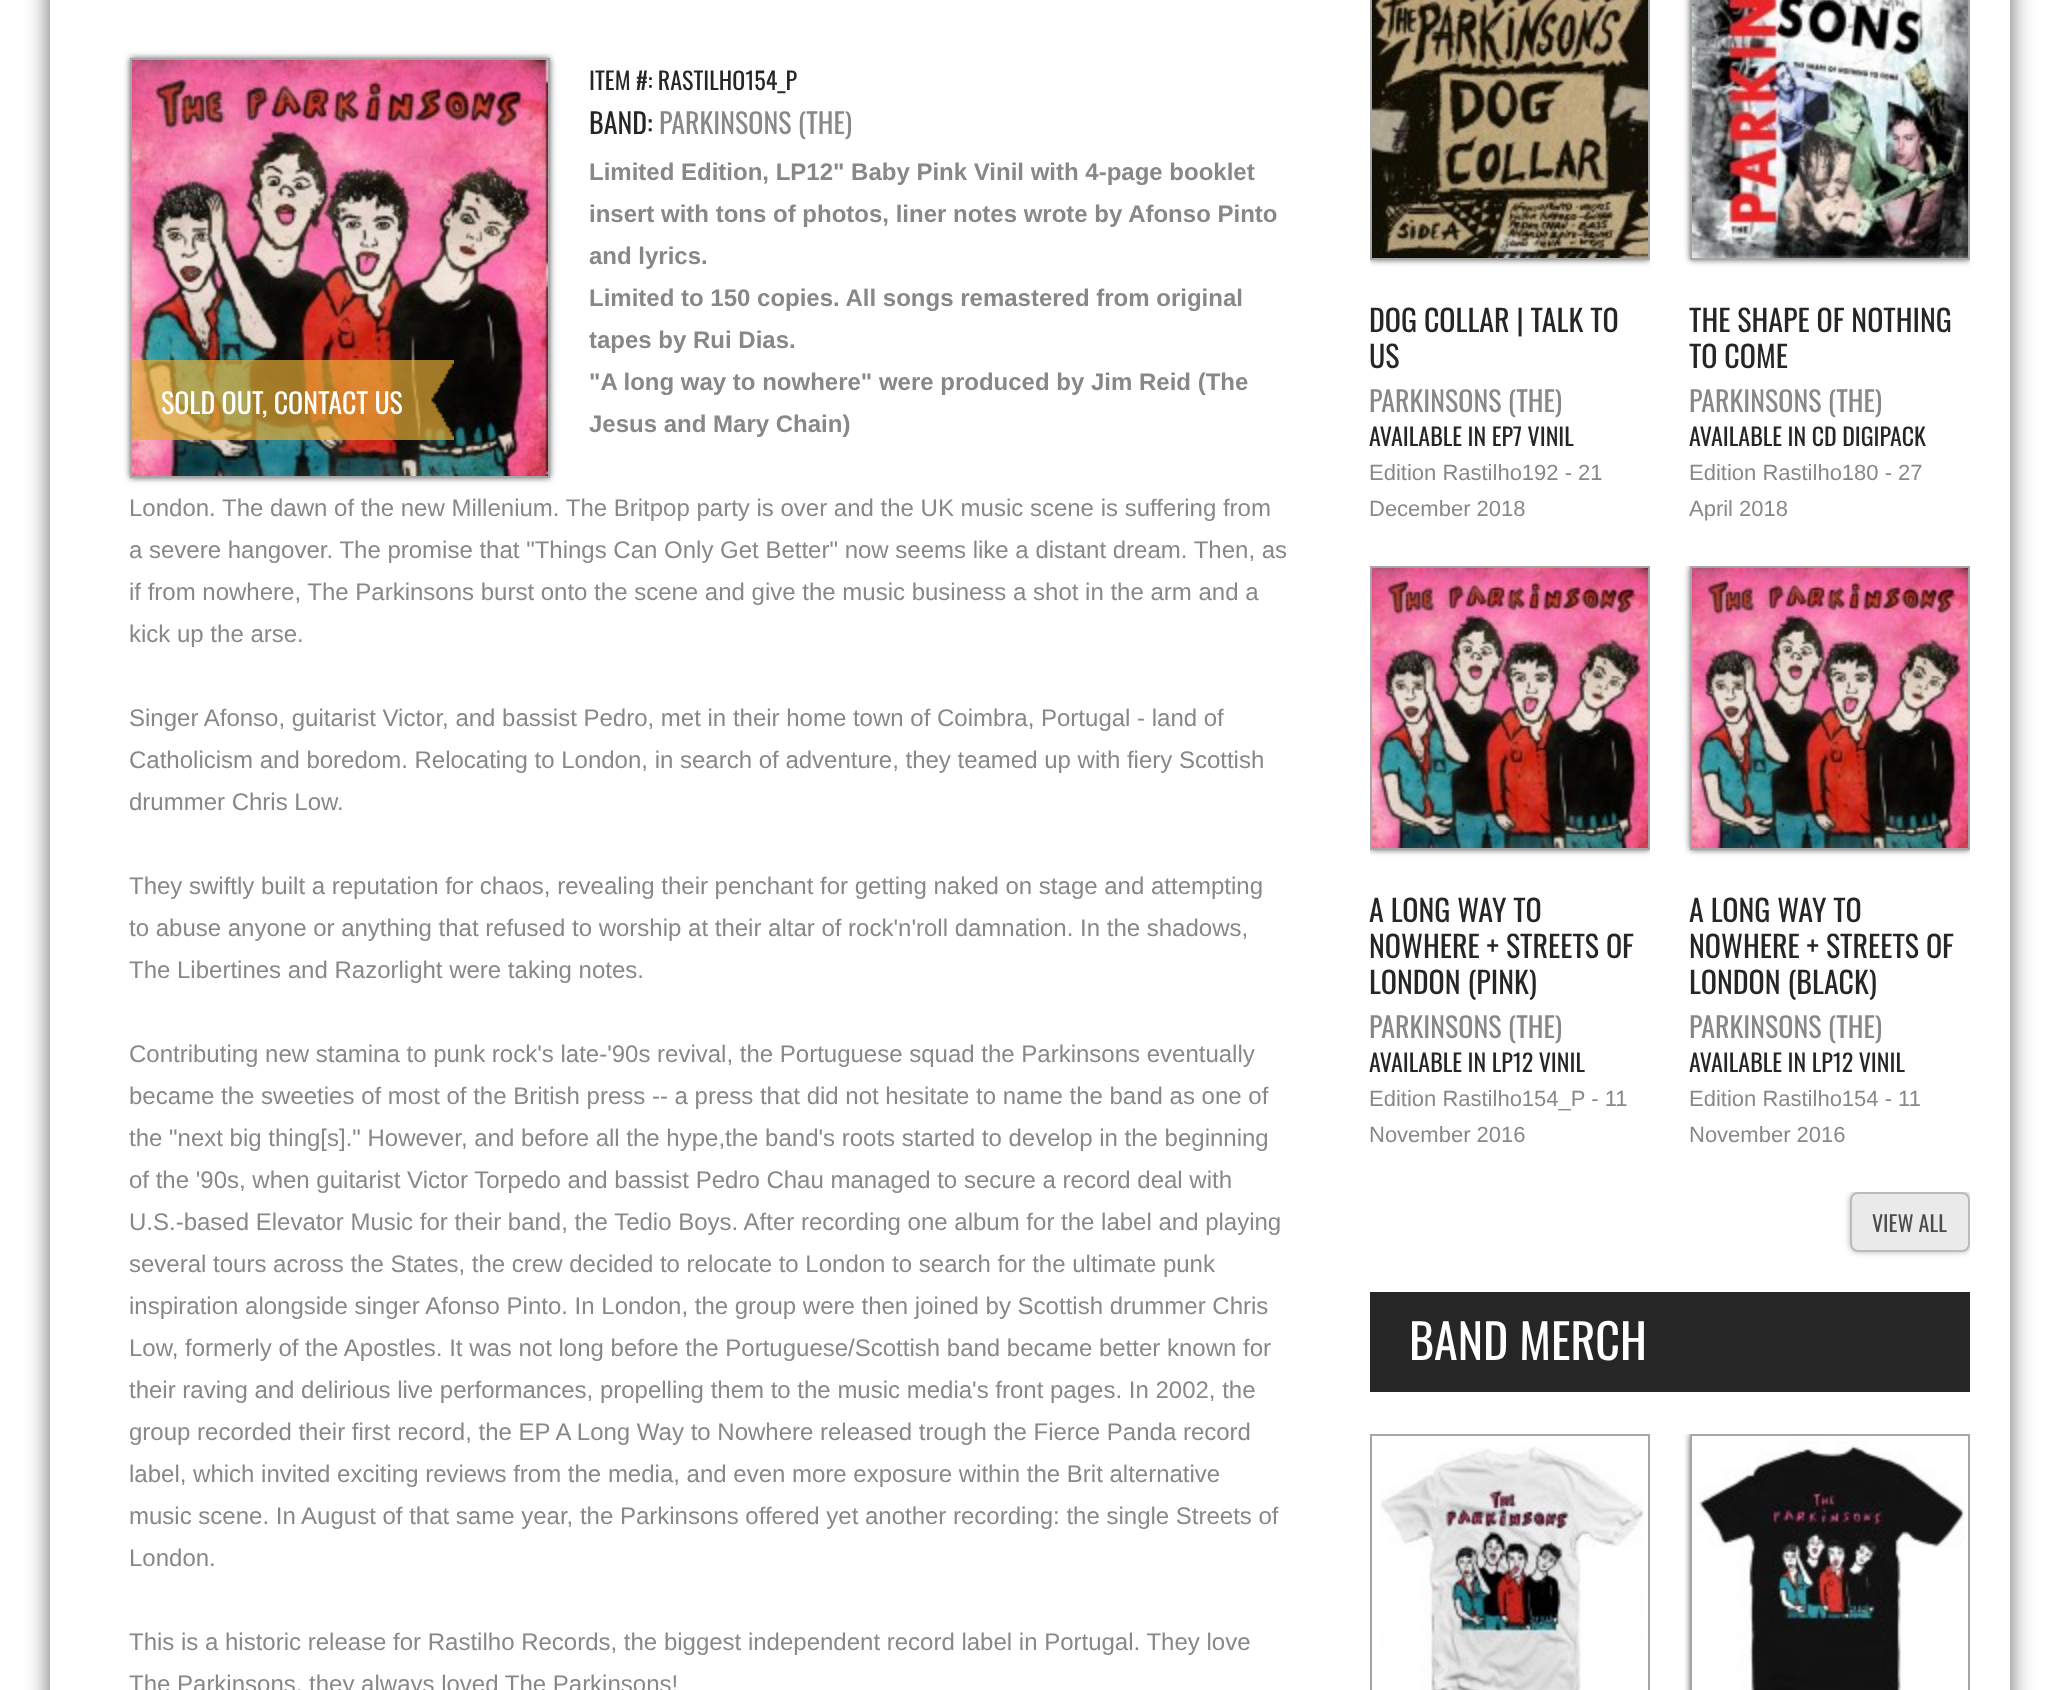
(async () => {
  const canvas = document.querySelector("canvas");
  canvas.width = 2057;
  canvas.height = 1690;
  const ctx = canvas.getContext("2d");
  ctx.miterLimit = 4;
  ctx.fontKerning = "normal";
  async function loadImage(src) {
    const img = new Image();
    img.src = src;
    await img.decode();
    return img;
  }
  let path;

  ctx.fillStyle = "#ffffff";
  ctx.fillRect(0, 0, 2057, 1690);
  ctx.save();
  path = new Path2D("M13 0H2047V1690H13ZM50-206H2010V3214H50Z");
  ctx.clip(path, "evenodd");
  ctx.fillStyle = "#666666";
  ctx.filter = "blur(12px)";
  ctx.beginPath();
  ctx.rect(50, -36, 1960, 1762);
  ctx.fill();
  ctx.filter = "none";
  ctx.restore();
  ctx.fillStyle = "#666666";
  ctx.filter = "blur(3px)";
  ctx.beginPath();
  ctx.rect(130, 58, 420, 420);
  ctx.fill();
  ctx.filter = "none";
  ctx.strokeStyle = "#a6a6a6";
  ctx.lineWidth = 2;
  ctx.strokeRect(131, 59, 418, 418);
  ctx.drawImage(await loadImage("img/1.png"), 132, 60, 416, 416);
  ctx.drawImage(await loadImage("img/2.png"), 132, 360, 322, 80);
  ctx.save();
  ctx.beginPath();
  ctx.rect(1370, 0, 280, 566);
  ctx.clip();
  ctx.filter = "blur(3px)";
  ctx.beginPath();
  ctx.rect(1370, -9, 280, 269);
  ctx.fill();
  ctx.filter = "none";
  ctx.restore();
  ctx.strokeRect(1371, -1, 278, 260);
  ctx.drawImage(await loadImage("img/3.png"), 1372, 0, 276, 258);
  ctx.save();
  ctx.beginPath();
  ctx.rect(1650, 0, 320, 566);
  ctx.clip();
  ctx.filter = "blur(3px)";
  ctx.beginPath();
  ctx.rect(1690, -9, 280, 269);
  ctx.fill();
  ctx.filter = "none";
  ctx.restore();
  ctx.strokeRect(1691, -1, 278, 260);
  ctx.drawImage(await loadImage("img/4.png"), 1692, 0, 276, 258);
  ctx.save();
  ctx.beginPath();
  ctx.rect(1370, 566, 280, 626);
  ctx.clip();
  ctx.filter = "blur(3px)";
  ctx.beginPath();
  ctx.rect(1370, 566, 280, 284);
  ctx.fill();
  ctx.filter = "none";
  ctx.restore();
  ctx.strokeRect(1371, 567, 278, 282);
  ctx.drawImage(await loadImage("img/5.png"), 1372, 568, 276, 280);
  ctx.save();
  ctx.beginPath();
  ctx.rect(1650, 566, 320, 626);
  ctx.clip();
  ctx.filter = "blur(3px)";
  ctx.beginPath();
  ctx.rect(1690, 566, 280, 284);
  ctx.fill();
  ctx.filter = "none";
  ctx.restore();
  ctx.strokeRect(1691, 567, 278, 282);
  ctx.drawImage(await loadImage("img/5.png"), 1692, 568, 276, 280);
  ctx.save();
  ctx.beginPath();
  ctx.rect(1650, 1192, 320, 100);
  ctx.clip();
  ctx.fillStyle = "#b4b4b4";
  ctx.filter = "blur(3px)";
  ctx.beginPath();
  ctx.roundRect(1850, 1192, 120, 60, 8);
  ctx.fill();
  ctx.filter = "none";
  ctx.restore();
  ctx.fillStyle = "#eaeaea";
  ctx.beginPath();
  ctx.roundRect(1851, 1193, 118, 58, 7);
  ctx.fill();
  ctx.strokeStyle = "#bbbbbb";
  ctx.stroke();
  ctx.fillStyle = "#262626";
  ctx.fillRect(1370, 1292, 600, 100);
  ctx.strokeStyle = "#a6a6a6";
  ctx.strokeRect(1371, 1435, 278, 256);
  ctx.drawImage(await loadImage("img/6.png"), 1380, 1446, 264, 244);
  ctx.save();
  ctx.beginPath();
  ctx.rect(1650, 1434, 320, 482);
  ctx.clip();
  ctx.beginPath();
  ctx.rect(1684, 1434, 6, 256);
  ctx.clip();
  ctx.fillStyle = "#666666";
  ctx.filter = "blur(3px)";
  ctx.beginPath();
  ctx.rect(1690, 1434, 280, 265);
  ctx.fill();
  ctx.filter = "none";
  ctx.restore();
  ctx.strokeRect(1691, 1435, 278, 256);
  ctx.drawImage(await loadImage("img/7.png"), 1696, 1438, 269, 252);
  ctx.font = "24px Oswald";
  ctx.fillText("ITEM #: RASTILHO154_P", 589, 90);
  ctx.font = "28px Oswald";
  ctx.fillText("BAND:", 589, 134);
  ctx.fillStyle = "#888888";
  ctx.fillText("PARKINSONS (THE)", 659, 134);
  ctx.font = "bold 24px Liberation Sans";
  for (const [text, x, y] of [
    ["Limited Edition, LP12\" Baby Pink Vinil with 4-page booklet", 589, 180],
    ["insert with tons of photos, liner notes wrote by Afonso Pinto", 589, 222],
    ["and lyrics.", 589, 264],
    ["Limited to 150 copies. All songs remastered from original", 589, 306],
    ["tapes by Rui Dias.", 589, 348],
    ["\"A long way to nowhere\" were produced by Jim Reid (The", 589, 390],
    ["Jesus and Mary Chain)", 589, 432],
  ]) {
    ctx.fillText(text, x, y);
  }
  ctx.font = "24px Liberation Sans";
  for (const [text, x, y] of [
    ["London. The dawn of the new Millenium. The Britpop party is over and the UK music scene is suffering from", 129, 516],
    ["a severe hangover. The promise that \"Things Can Only Get Better\" now seems like a distant dream. Then, as", 129, 558],
    ["if from nowhere, The Parkinsons burst onto the scene and give the music business a shot in the arm and a", 129, 600],
    ["kick up the arse.", 129, 642],
    ["Singer Afonso, guitarist Victor, and bassist Pedro, met in their home town of Coimbra, Portugal - land of", 129, 726],
    ["Catholicism and boredom. Relocating to London, in search of adventure, they teamed up with fiery Scottish", 129, 768],
    ["drummer Chris Low.", 129, 810],
    ["They swiftly built a reputation for chaos, revealing their penchant for getting naked on stage and attempting", 129, 894],
    ["to abuse anyone or anything that refused to worship at their altar of rock'n'roll damnation. In the shadows,", 129, 936],
    ["The Libertines and Razorlight were taking notes.", 129, 978],
    ["Contributing new stamina to punk rock's late-'90s revival, the Portuguese squad the Parkinsons eventually", 129, 1062],
    ["became the sweeties of most of the British press -- a press that did not hesitate to name the band as one of", 129, 1104],
    ["the \"next big thing[s].\" However, and before all the hype,the band's roots started to develop in the beginning", 129, 1146],
    ["of the '90s, when guitarist Victor Torpedo and bassist Pedro Chau managed to secure a record deal with", 129, 1188],
    ["U.S.-based Elevator Music for their band, the Tedio Boys. After recording one album for the label and playing", 129, 1230],
    ["several tours across the States, the crew decided to relocate to London to search for the ultimate punk", 129, 1272],
    ["inspiration alongside singer Afonso Pinto. In London, the group were then joined by Scottish drummer Chris", 129, 1314],
    ["Low, formerly of the Apostles. It was not long before the Portuguese/Scottish band became better known for", 129, 1356],
    ["their raving and delirious live performances, propelling them to the music media's front pages. In 2002, the", 129, 1398],
    ["group recorded their first record, the EP A Long Way to Nowhere released trough the Fierce Panda record", 129, 1440],
    ["label, which invited exciting reviews from the media, and even more exposure within the Brit alternative", 129, 1482],
    ["music scene. In August of that same year, the Parkinsons offered yet another recording: the single Streets of", 129, 1524],
    ["London.", 129, 1566],
    ["This is a historic release for Rastilho Records, the biggest independent record label in Portugal. They love", 129, 1650],
    ["The Parkinsons, they always loved The Parkinsons!", 129, 1692],
  ]) {
    ctx.fillText(text, x, y);
  }
  ctx.font = "28px Oswald";
  ctx.fillStyle = "#ffffff";
  ctx.fillText("SOLD OUT, CONTACT US", 161, 414);
  ctx.font = "30px Oswald";
  ctx.fillStyle = "#262626";
  ctx.fillText("DOG COLLAR | TALK TO", 1369, 332);
  ctx.fillText("US", 1369, 368);
  ctx.font = "28px Oswald";
  ctx.fillStyle = "#888888";
  ctx.fillText("PARKINSONS (THE)", 1369, 412);
  ctx.font = "24px Oswald";
  ctx.fillStyle = "#262626";
  ctx.fillText("AVAILABLE IN EP7 VINIL", 1369, 446);
  ctx.font = "22px Liberation Sans";
  ctx.fillStyle = "#888888";
  ctx.fillText("Edition Rastilho192 - 21", 1369, 480);
  ctx.fillText("December 2018", 1369, 516);
  ctx.font = "30px Oswald";
  ctx.fillStyle = "#262626";
  ctx.fillText("THE SHAPE OF NOTHING", 1689, 332);
  ctx.fillText("TO COME", 1689, 368);
  ctx.font = "28px Oswald";
  ctx.fillStyle = "#888888";
  ctx.fillText("PARKINSONS (THE)", 1689, 412);
  ctx.font = "24px Oswald";
  ctx.fillStyle = "#262626";
  ctx.fillText("AVAILABLE IN CD DIGIPACK", 1689, 446);
  ctx.font = "22px Liberation Sans";
  ctx.fillStyle = "#888888";
  ctx.fillText("Edition Rastilho180 - 27", 1689, 480);
  ctx.fillText("April 2018", 1689, 516);
  ctx.font = "30px Oswald";
  ctx.fillStyle = "#262626";
  for (const [text, x, y] of [
    ["A LONG WAY TO", 1369, 922],
    ["NOWHERE + STREETS OF", 1369, 958],
    ["LONDON (PINK)", 1369, 994],
  ]) {
    ctx.fillText(text, x, y);
  }
  ctx.font = "28px Oswald";
  ctx.fillStyle = "#888888";
  ctx.fillText("PARKINSONS (THE)", 1369, 1038);
  ctx.font = "24px Oswald";
  ctx.fillStyle = "#262626";
  ctx.fillText("AVAILABLE IN LP12 VINIL", 1369, 1072);
  ctx.font = "22px Liberation Sans";
  ctx.fillStyle = "#888888";
  ctx.fillText("Edition Rastilho154_P - 11", 1369, 1106);
  ctx.fillText("November 2016", 1369, 1142);
  ctx.font = "30px Oswald";
  ctx.fillStyle = "#262626";
  for (const [text, x, y] of [
    ["A LONG WAY TO", 1689, 922],
    ["NOWHERE + STREETS OF", 1689, 958],
    ["LONDON (BLACK)", 1689, 994],
  ]) {
    ctx.fillText(text, x, y);
  }
  ctx.font = "28px Oswald";
  ctx.fillStyle = "#888888";
  ctx.fillText("PARKINSONS (THE)", 1689, 1038);
  ctx.font = "24px Oswald";
  ctx.fillStyle = "#262626";
  ctx.fillText("AVAILABLE IN LP12 VINIL", 1689, 1072);
  ctx.font = "22px Liberation Sans";
  ctx.fillStyle = "#888888";
  ctx.fillText("Edition Rastilho154 - 11", 1689, 1106);
  ctx.fillText("November 2016", 1689, 1142);
  ctx.font = "22px Oswald";
  ctx.fillStyle = "#4c4c4c";
  ctx.fillText("VIEW ALL", 1872, 1232);
  ctx.font = "48px Oswald";
  ctx.fillStyle = "#ffffff";
  ctx.fillText("BAND MERCH", 1409, 1360);
})();
